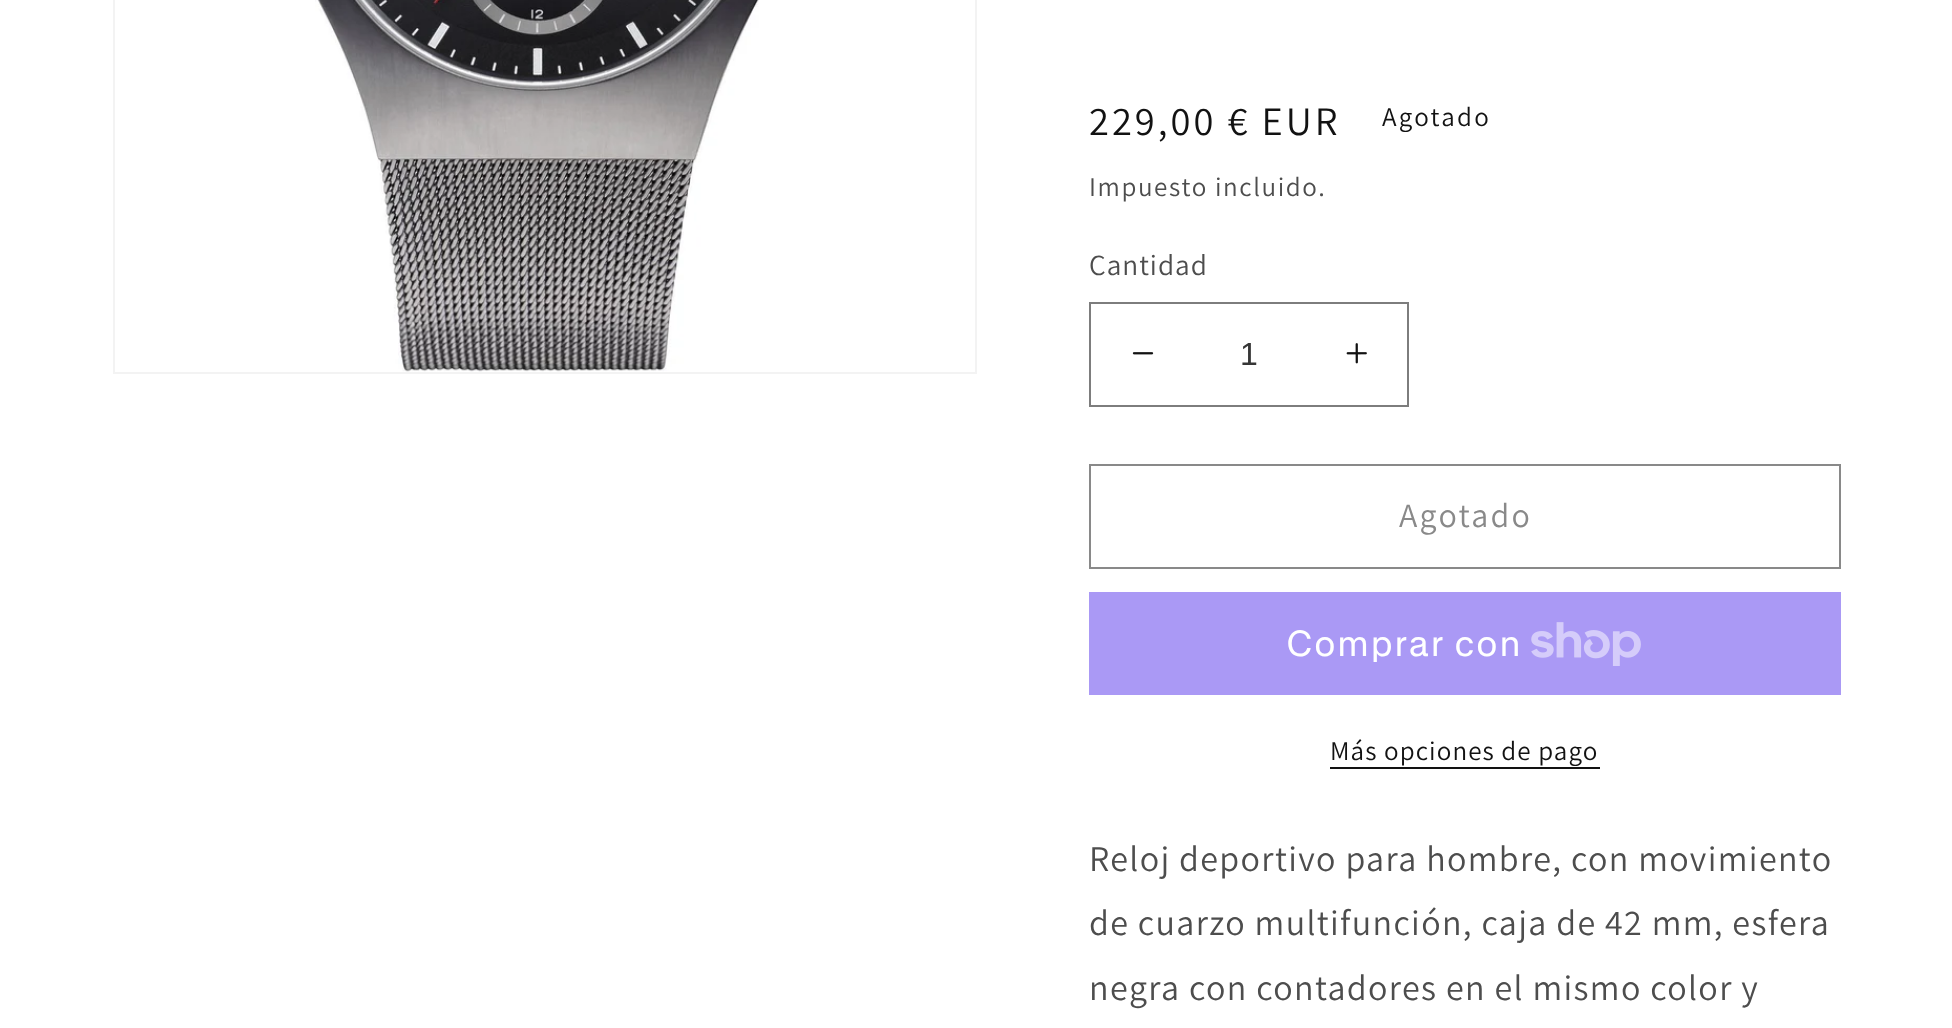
(async () => {
  const canvas = document.querySelector("canvas");
  canvas.width = 1952;
  canvas.height = 1028;
  const ctx = canvas.getContext("2d");
  ctx.miterLimit = 4;
  ctx.fontKerning = "normal";
  async function loadImage(src) {
    const img = new Image();
    img.src = src;
    await img.decode();
    return img;
  }

  ctx.fillStyle = "#ffffff";
  ctx.fillRect(0, 0, 1952, 1028);
  ctx.strokeStyle = "#f3f3f3";
  ctx.lineWidth = 2;
  ctx.strokeRect(114, -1, 862, 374);
  ctx.drawImage(await loadImage("img/1.png"), 315, 0, 444, 372);
  ctx.drawImage(await loadImage("img/2.png"), 1132, 352, 22, 3);
  ctx.drawImage(await loadImage("img/3.png"), 1346, 343, 21, 21);
  ctx.strokeStyle = "#7d7d7d";
  ctx.strokeRect(1090, 303, 318, 103);
  ctx.strokeStyle = "#898989";
  ctx.strokeRect(1090, 465, 750, 103);
  ctx.fillStyle = "#aa99f5";
  ctx.fillRect(1089, 592, 752, 103);
  ctx.drawImage(await loadImage("img/4.png"), 1531, 622, 110, 44);
  ctx.fillStyle = "#121212";
  ctx.fillRect(1330, 767, 270, 2);
  ctx.letterSpacing = "3px";
  ctx.font = "40.5px Assistant";
  ctx.fillText("229,00 € EUR", 1089, 135);
  ctx.letterSpacing = "2.25px";
  ctx.font = "27px Assistant";
  ctx.fillText("Agotado", 1382, 126);
  ctx.letterSpacing = "1.6px";
  ctx.fillStyle = "#4d4d4d";
  ctx.fillText("Impuesto incluido.", 1089, 196);
  ctx.letterSpacing = "1px";
  ctx.font = "29.25px Assistant";
  ctx.fillText("Cantidad", 1089, 275);
  ctx.letterSpacing = "0px";
  ctx.font = "32px Liberation Sans";
  ctx.fillStyle = "#363636";
  ctx.fillText("1", 1240, 365);
  ctx.letterSpacing = "2.25px";
  ctx.font = "34px Assistant";
  ctx.fillStyle = "#898989";
  ctx.fillText("Agotado", 1399, 527);
  ctx.letterSpacing = "1.35px";
  ctx.font = "36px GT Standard";
  ctx.fillStyle = "#ffffff";
  ctx.fillText("Comprar con", 1286, 656);
  ctx.letterSpacing = "1.1px";
  ctx.font = "27px Assistant";
  ctx.fillStyle = "#121212";
  ctx.fillText("Más opciones de pago", 1330, 760);
  ctx.letterSpacing = "1.35px";
  ctx.font = "36px Assistant";
  ctx.fillStyle = "#4d4d4d";
  for (const [text, x, y] of [
    ["Reloj deportivo para hombre, con movimiento", 1089, 871],
    ["de cuarzo multifunción, caja de 42 mm, esfera", 1089, 935],
    ["negra con contadores en el mismo color y", 1089, 1000],
  ]) {
    ctx.fillText(text, x, y);
  }
})();
